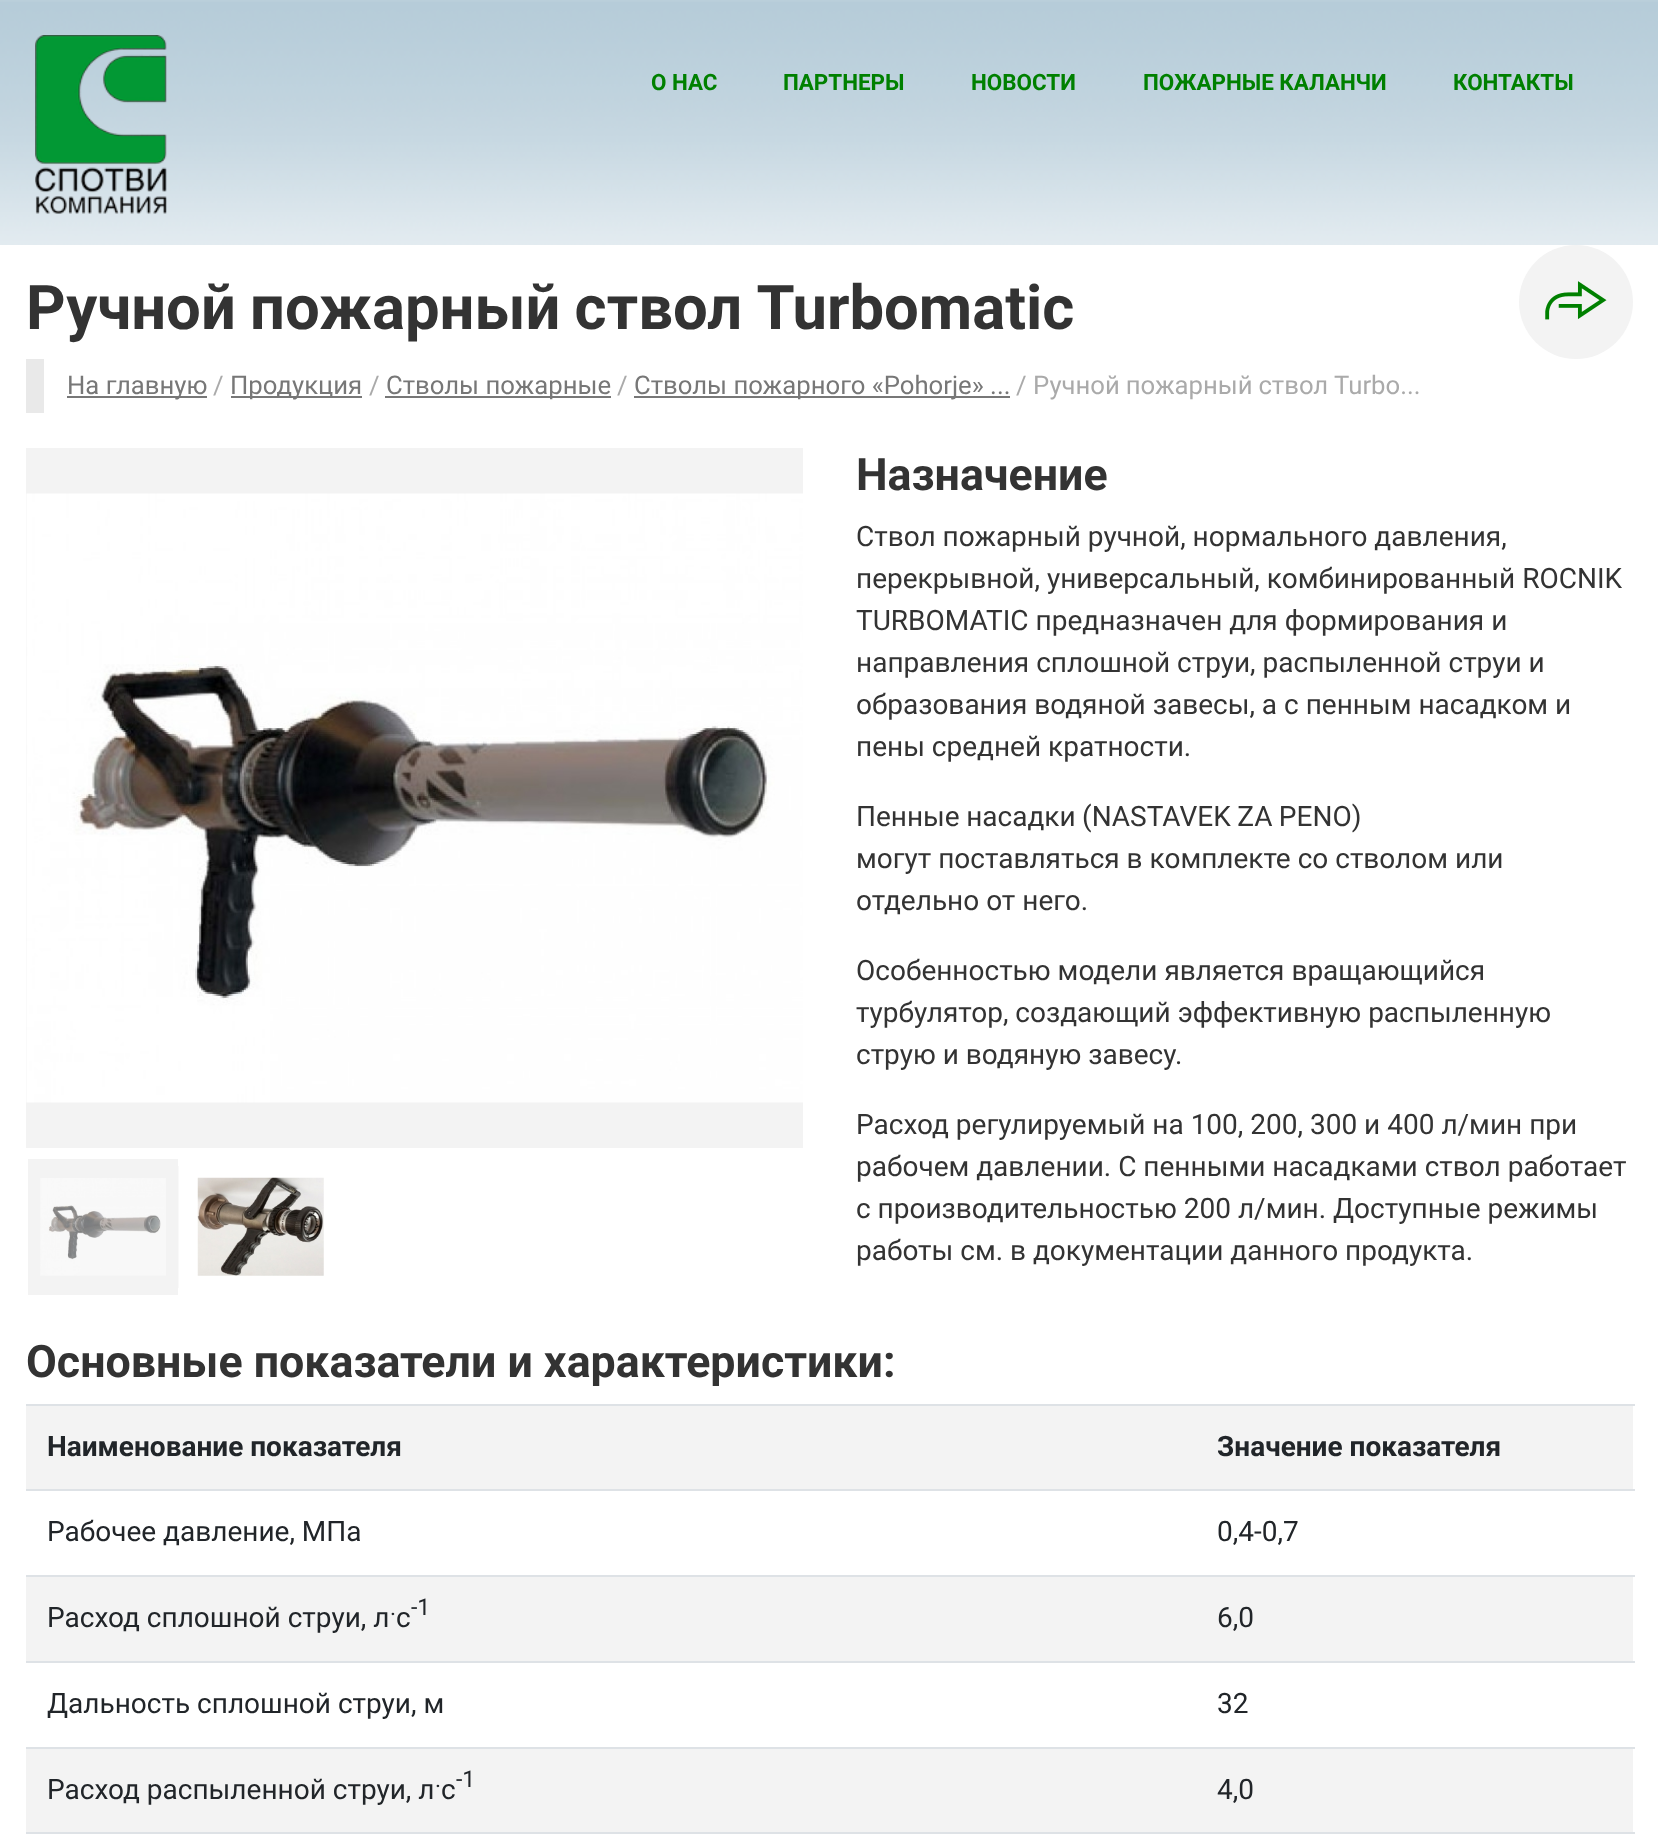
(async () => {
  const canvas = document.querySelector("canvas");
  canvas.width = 1658;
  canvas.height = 1843;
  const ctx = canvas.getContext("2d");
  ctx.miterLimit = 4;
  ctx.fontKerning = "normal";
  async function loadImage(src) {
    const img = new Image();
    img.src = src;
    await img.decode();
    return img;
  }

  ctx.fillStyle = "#ffffff";
  ctx.fillRect(0, 0, 1658, 1843);
  ctx.drawImage(await loadImage("img/1.png"), 0, 0, 1658, 245);
  ctx.drawImage(await loadImage("img/2.png"), 35, 35, 132, 179);
  ctx.fillStyle = "#f3f3f3";
  ctx.beginPath();
  ctx.arc(1576, 302, 57, 0, Math.PI * 2);
  ctx.fill();
  ctx.drawImage(await loadImage("img/3.png"), 1545, 281, 62, 39);
  for (const [x, y, w, h, color] of [
    [26, 359, 18, 54, "#e9e9e9"],
    [67, 396, 140, 2, "#777777"],
    [231, 396, 131, 2, "#777777"],
    [385, 396, 226, 2, "#777777"],
    [634, 396, 376, 2, "#777777"],
    [26, 448, 777, 700, "#f3f3f3"],
  ]) {
    ctx.fillStyle = color;
    ctx.fillRect(x, y, w, h);
  }
  ctx.drawImage(await loadImage("img/4.png"), 26, 493, 777, 610);
  ctx.fillRect(28, 1159, 150, 136);
  ctx.fillStyle = "rgba(243, 243, 243, 0.5)";
  ctx.fillRect(178, 1166, 1, 122);
  ctx.drawImage(await loadImage("img/5.png"), 40, 1178, 126, 98);
  ctx.drawImage(await loadImage("img/6.png"), 197, 1177, 127, 99);
  for (const [x, y, w, h, color] of [
    [26, 1406, 1607, 83, "#f3f3f3"],
    [26, 1404, 1609, 2, "#dee2e6"],
    [26, 1489, 1609, 2, "#dee2e6"],
    [26, 1577, 1607, 84, "#f3f3f3"],
    [26, 1575, 1609, 2, "#dee2e6"],
    [26, 1661, 1609, 2, "#dee2e6"],
    [26, 1749, 1607, 83, "#f3f3f3"],
    [26, 1747, 1609, 2, "#dee2e6"],
    [26, 1832, 1609, 2, "#dee2e6"],
  ]) {
    ctx.fillStyle = color;
    ctx.fillRect(x, y, w, h);
  }
  ctx.font = "bold 22.4px Roboto";
  ctx.fillStyle = "#008000";
  for (const [text, x, y] of [
    ["О НАС", 651, 90],
    ["ПАРТНЕРЫ", 783, 90],
    ["НОВОСТИ", 971, 90],
    ["ПОЖАРНЫЕ КАЛАНЧИ", 1143, 90],
    ["КОНТАКТЫ", 1453, 90],
  ]) {
    ctx.fillText(text, x, y);
  }
  ctx.wordSpacing = "-1px";
  ctx.font = "bold 61.6px Roboto";
  ctx.fillStyle = "#333333";
  ctx.fillText("Ручной пожарный ствол Turbomatic", 26, 329);
  ctx.wordSpacing = "0px";
  ctx.font = "25.7px Roboto";
  ctx.fillStyle = "#777777";
  ctx.fillText("На главную", 67, 394);
  ctx.fillStyle = "#aaaaaa";
  ctx.fillText("/", 213, 394);
  ctx.fillStyle = "#777777";
  ctx.fillText("Продукция", 230, 394);
  ctx.fillStyle = "#aaaaaa";
  ctx.fillText("/", 369, 394);
  ctx.fillStyle = "#777777";
  ctx.fillText("Стволы пожарные", 386, 394);
  ctx.fillStyle = "#aaaaaa";
  ctx.fillText("/", 617, 394);
  ctx.fillStyle = "#777777";
  ctx.fillText("Стволы пожарного «Pohorje» ...", 634, 394);
  ctx.fillStyle = "#aaaaaa";
  ctx.fillText("/", 1016, 394);
  ctx.wordSpacing = "-0.5px";
  ctx.fillText("Ручной пожарный ствол Turbo...", 1033, 394);
  ctx.wordSpacing = "0px";
  ctx.font = "bold 44.75px Roboto";
  ctx.fillStyle = "#333333";
  ctx.fillText("Назначение", 856, 490);
  ctx.font = "28px Roboto";
  for (const [text, x, y] of [
    ["Ствол пожарный ручной, нормального давления,", 856, 546],
    ["перекрывной, универсальный, комбинированный ROCNIK", 856, 588],
    ["TURBOMATIC предназначен для формирования и", 856, 630],
    ["направления сплошной струи, распыленной струи и", 856, 672],
    ["образования водяной завесы, а с пенным насадком и", 856, 714],
    ["пены средней кратности.", 856, 756],
  ]) {
    ctx.fillText(text, x, y);
  }
  ctx.wordSpacing = "-0.5px";
  ctx.fillText("Пенные насадки (NASTAVEK ZA PENO)", 856, 826);
  ctx.wordSpacing = "0px";
  for (const [text, x, y] of [
    ["могут поставляться в комплекте со стволом или", 856, 868],
    ["отдельно от него.", 856, 910],
    ["Особенностью модели является вращающийся", 856, 980],
    ["турбулятор, создающий эффективную распыленную", 856, 1022],
    ["струю и водяную завесу.", 856, 1064],
    ["Расход регулируемый на 100, 200, 300 и 400 л/мин при", 856, 1134],
    ["рабочем давлении. С пенными насадками ствол работает", 856, 1176],
    ["с производительностью 200 л/мин. Доступные режимы", 856, 1218],
    ["работы см. в документации данного продукта.", 856, 1260],
  ]) {
    ctx.fillText(text, x, y);
  }
  ctx.font = "bold 44.75px Roboto";
  ctx.fillText("Основные показатели и характеристики:", 26, 1377);
  ctx.font = "bold 28px Roboto";
  ctx.fillStyle = "#212529";
  ctx.fillText("Наименование показателя", 47, 1456);
  ctx.fillText("Значение показателя", 1217, 1456);
  ctx.font = "28px Roboto";
  for (const [text, x, y] of [
    ["Рабочее давление, МПа", 47, 1541],
    ["0,4-0,7", 1217, 1541],
    ["Расход сплошной струи, л", 47, 1627],
  ]) {
    ctx.fillText(text, x, y);
  }
  ctx.font = "23px Roboto";
  ctx.fillText(".", 390, 1615);
  ctx.font = "28px Roboto";
  ctx.fillText("с", 396, 1627);
  ctx.font = "23px Roboto";
  ctx.fillText("-1", 411, 1615);
  ctx.font = "28px Roboto";
  for (const [text, x, y] of [
    ["6,0", 1217, 1627],
    ["Дальность сплошной струи, м", 47, 1713],
    ["32", 1217, 1713],
    ["Расход распыленной струи, л", 47, 1799],
  ]) {
    ctx.fillText(text, x, y);
  }
  ctx.font = "23px Roboto";
  ctx.fillText(".", 435, 1787);
  ctx.font = "28px Roboto";
  ctx.fillText("с", 441, 1799);
  ctx.font = "23px Roboto";
  ctx.fillText("-1", 456, 1787);
  ctx.font = "28px Roboto";
  ctx.fillText("4,0", 1217, 1799);
})();
